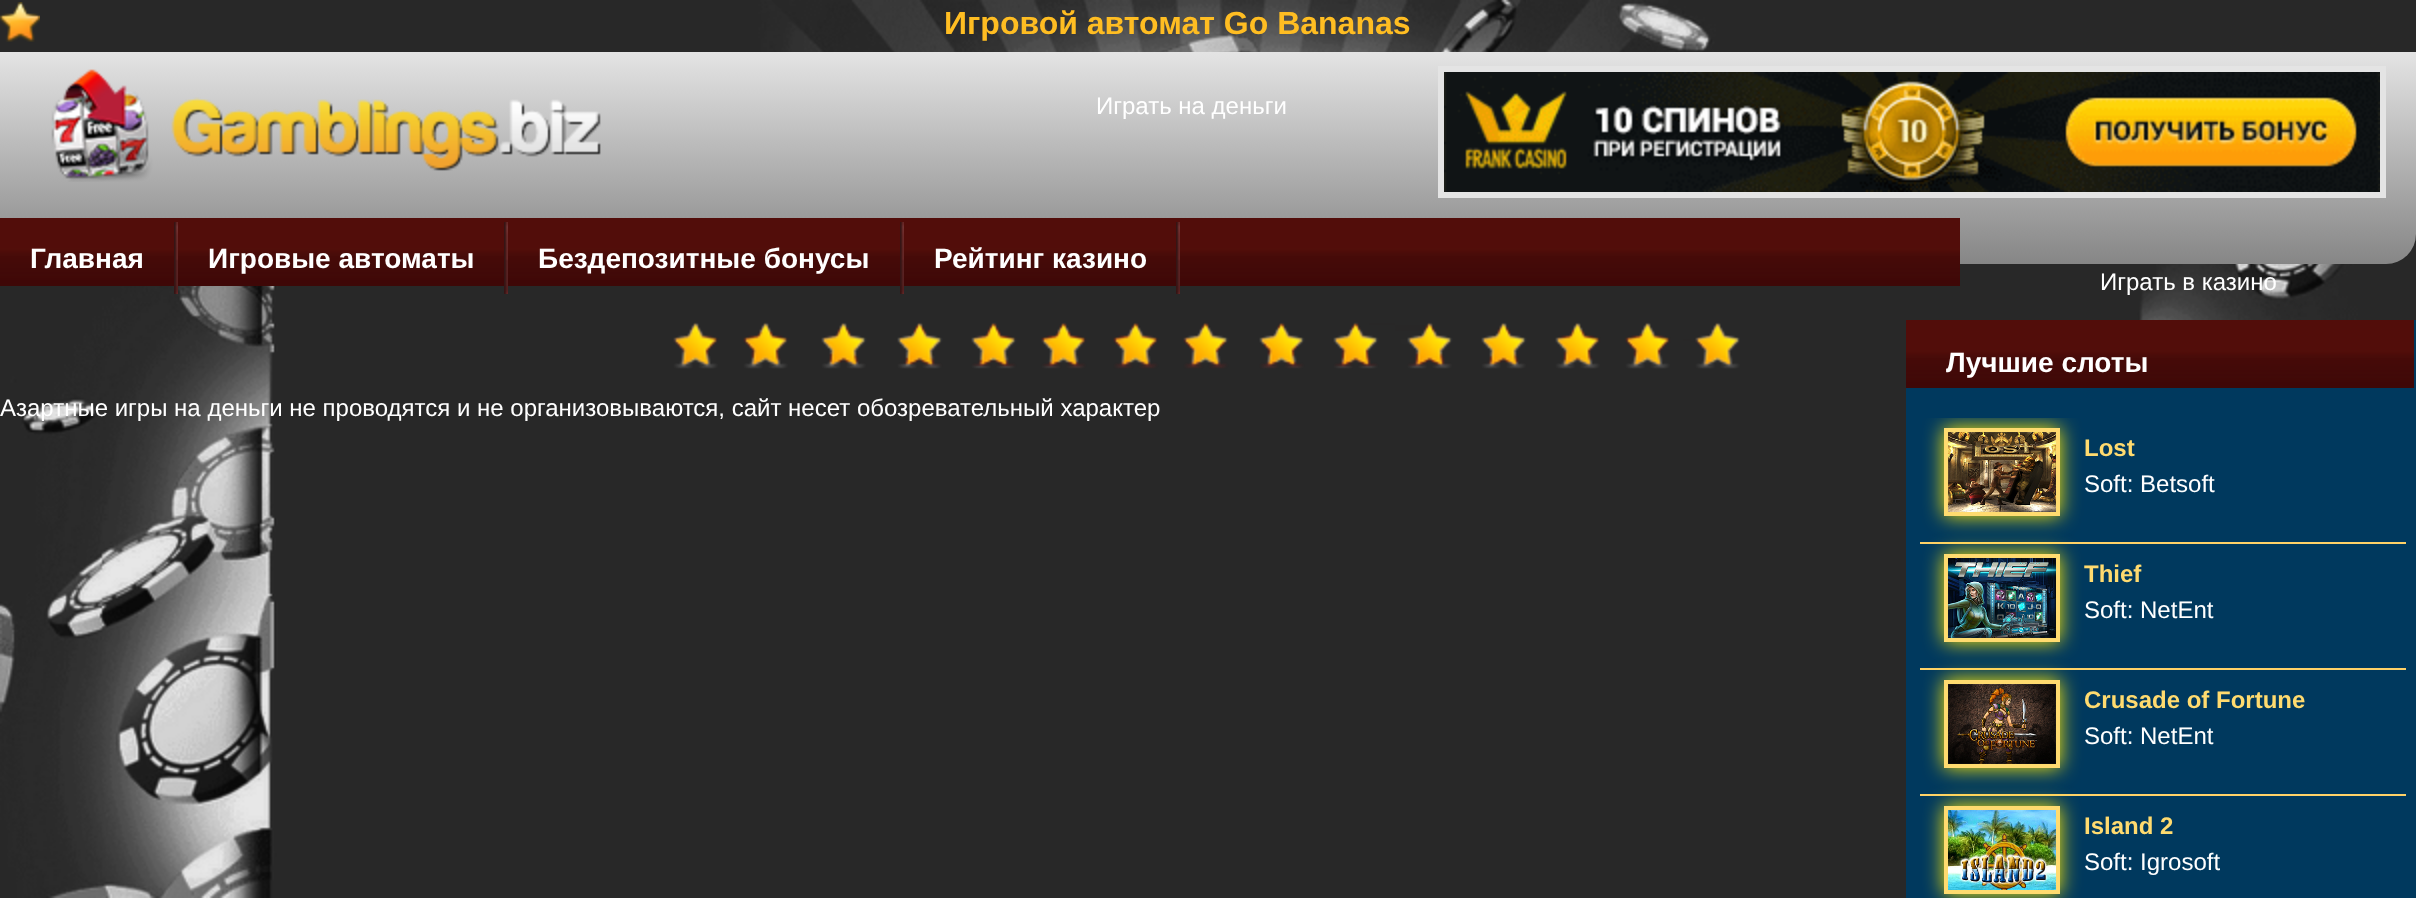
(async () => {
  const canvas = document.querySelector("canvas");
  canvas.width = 2416;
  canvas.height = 898;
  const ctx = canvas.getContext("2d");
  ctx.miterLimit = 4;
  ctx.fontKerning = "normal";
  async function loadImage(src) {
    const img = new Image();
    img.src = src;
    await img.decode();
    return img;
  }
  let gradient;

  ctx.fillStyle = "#ffffff";
  ctx.fillRect(0, 0, 2416, 898);
  ctx.drawImage(await loadImage("img/1.png"), 0, 0, 2416, 898);
  ctx.drawImage(await loadImage("img/2.png"), 0, 2, 40, 40);
  gradient = ctx.createLinearGradient(1208, 52, 1208, 264);
  gradient.addColorStop(0, "#e4e4e4");
  gradient.addColorStop(1, "#868686");
  ctx.fillStyle = gradient;
  ctx.beginPath();
  ctx.roundRect(0, 52, 2416, 212, [0, 0, 30, 30]);
  ctx.fill();
  ctx.drawImage(await loadImage("img/3.png"), 673, 322, 1067, 47);
  ctx.fillStyle = "#00395e";
  ctx.fillRect(1906, 320, 510, 578);
  ctx.drawImage(await loadImage("img/4.png"), 1906, 320, 508, 68);
  ctx.fillStyle = "#ffd268";
  ctx.fillRect(1920, 542, 486, 2);
  ctx.save();
  ctx.beginPath();
  ctx.rect(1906, 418, 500, 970);
  ctx.clip();
  ctx.fillStyle = "#ffec04";
  ctx.filter = "blur(10px)";
  ctx.beginPath();
  ctx.rect(1944, 428, 116, 88);
  ctx.fill();
  ctx.filter = "none";
  ctx.restore();
  ctx.strokeStyle = "#ffdb6f";
  ctx.lineWidth = 4;
  ctx.strokeRect(1946, 430, 112, 84);
  ctx.drawImage(await loadImage("img/5.png"), 1948, 432, 108, 80);
  ctx.fillRect(1920, 668, 486, 2);
  ctx.fillStyle = "#ffec04";
  ctx.filter = "blur(10px)";
  ctx.beginPath();
  ctx.rect(1944, 554, 116, 88);
  ctx.fill();
  ctx.filter = "none";
  ctx.strokeRect(1946, 556, 112, 84);
  ctx.drawImage(await loadImage("img/6.png"), 1948, 558, 108, 80);
  ctx.fillStyle = "#ffd268";
  ctx.fillRect(1920, 794, 486, 2);
  ctx.fillStyle = "#ffec04";
  ctx.filter = "blur(10px)";
  ctx.beginPath();
  ctx.rect(1944, 680, 116, 88);
  ctx.fill();
  ctx.filter = "none";
  ctx.strokeRect(1946, 682, 112, 84);
  ctx.drawImage(await loadImage("img/7.png"), 1948, 684, 108, 80);
  ctx.filter = "blur(10px)";
  ctx.beginPath();
  ctx.rect(1944, 806, 116, 88);
  ctx.fill();
  ctx.filter = "none";
  ctx.strokeRect(1946, 808, 112, 84);
  ctx.drawImage(await loadImage("img/8.png"), 1948, 810, 108, 80);
  ctx.drawImage(await loadImage("img/9.png"), 51, 69, 550, 113);
  ctx.fillStyle = "#e4e4e4";
  ctx.fillRect(1438, 66, 948, 132);
  ctx.drawImage(await loadImage("img/10.png"), 1444, 72, 936, 120);
  ctx.drawImage(await loadImage("img/11.png"), 0, 218, 1960, 68);
  ctx.drawImage(await loadImage("img/12.png"), 174, 222, 4, 72);
  ctx.drawImage(await loadImage("img/13.png"), 504, 222, 4, 72);
  ctx.drawImage(await loadImage("img/13.png"), 900, 222, 4, 72);
  ctx.drawImage(await loadImage("img/13.png"), 1176, 222, 4, 72);
  ctx.font = "bold 32px Liberation Sans";
  ctx.fillStyle = "#ffbd22";
  ctx.fillText("Игровой автомат Go Bananas", 944, 34);
  ctx.font = "24px Liberation Sans";
  ctx.fillStyle = "#ffffff";
  for (const [text, x, y] of [
    ["Играть на деньги", 1096, 114],
    ["Играть в казино", 2100, 290],
    ["Азартные игры на деньги не проводятся и не организовываются, сайт несет обозревательный характер", 0, 416],
  ]) {
    ctx.fillText(text, x, y);
  }
  ctx.font = "bold 28px Liberation Sans";
  ctx.fillText("Лучшие слоты", 1946, 372);
  ctx.font = "bold 24px Liberation Sans";
  ctx.fillStyle = "#ffdb6f";
  ctx.fillText("Lost", 2084, 456);
  ctx.font = "24px Liberation Sans";
  ctx.fillStyle = "#ffffff";
  ctx.fillText("Soft: Betsoft", 2084, 492);
  ctx.font = "bold 24px Liberation Sans";
  ctx.fillStyle = "#ffdb6f";
  ctx.fillText("Thief", 2084, 582);
  ctx.font = "24px Liberation Sans";
  ctx.fillStyle = "#ffffff";
  ctx.fillText("Soft: NetEnt", 2084, 618);
  ctx.font = "bold 24px Liberation Sans";
  ctx.fillStyle = "#ffdb6f";
  ctx.fillText("Crusade of Fortune", 2084, 708);
  ctx.font = "24px Liberation Sans";
  ctx.fillStyle = "#ffffff";
  ctx.fillText("Soft: NetEnt", 2084, 744);
  ctx.font = "bold 24px Liberation Sans";
  ctx.fillStyle = "#ffdb6f";
  ctx.fillText("Island 2", 2084, 834);
  ctx.font = "24px Liberation Sans";
  ctx.fillStyle = "#ffffff";
  ctx.fillText("Soft: Igrosoft", 2084, 870);
  ctx.font = "bold 28px Liberation Sans";
  for (const [text, x, y] of [
    ["Главная", 30, 268],
    ["Игровые автоматы", 208, 268],
    ["Бездепозитные бонусы", 538, 268],
    ["Рейтинг казино", 934, 268],
  ]) {
    ctx.fillText(text, x, y);
  }
})();
